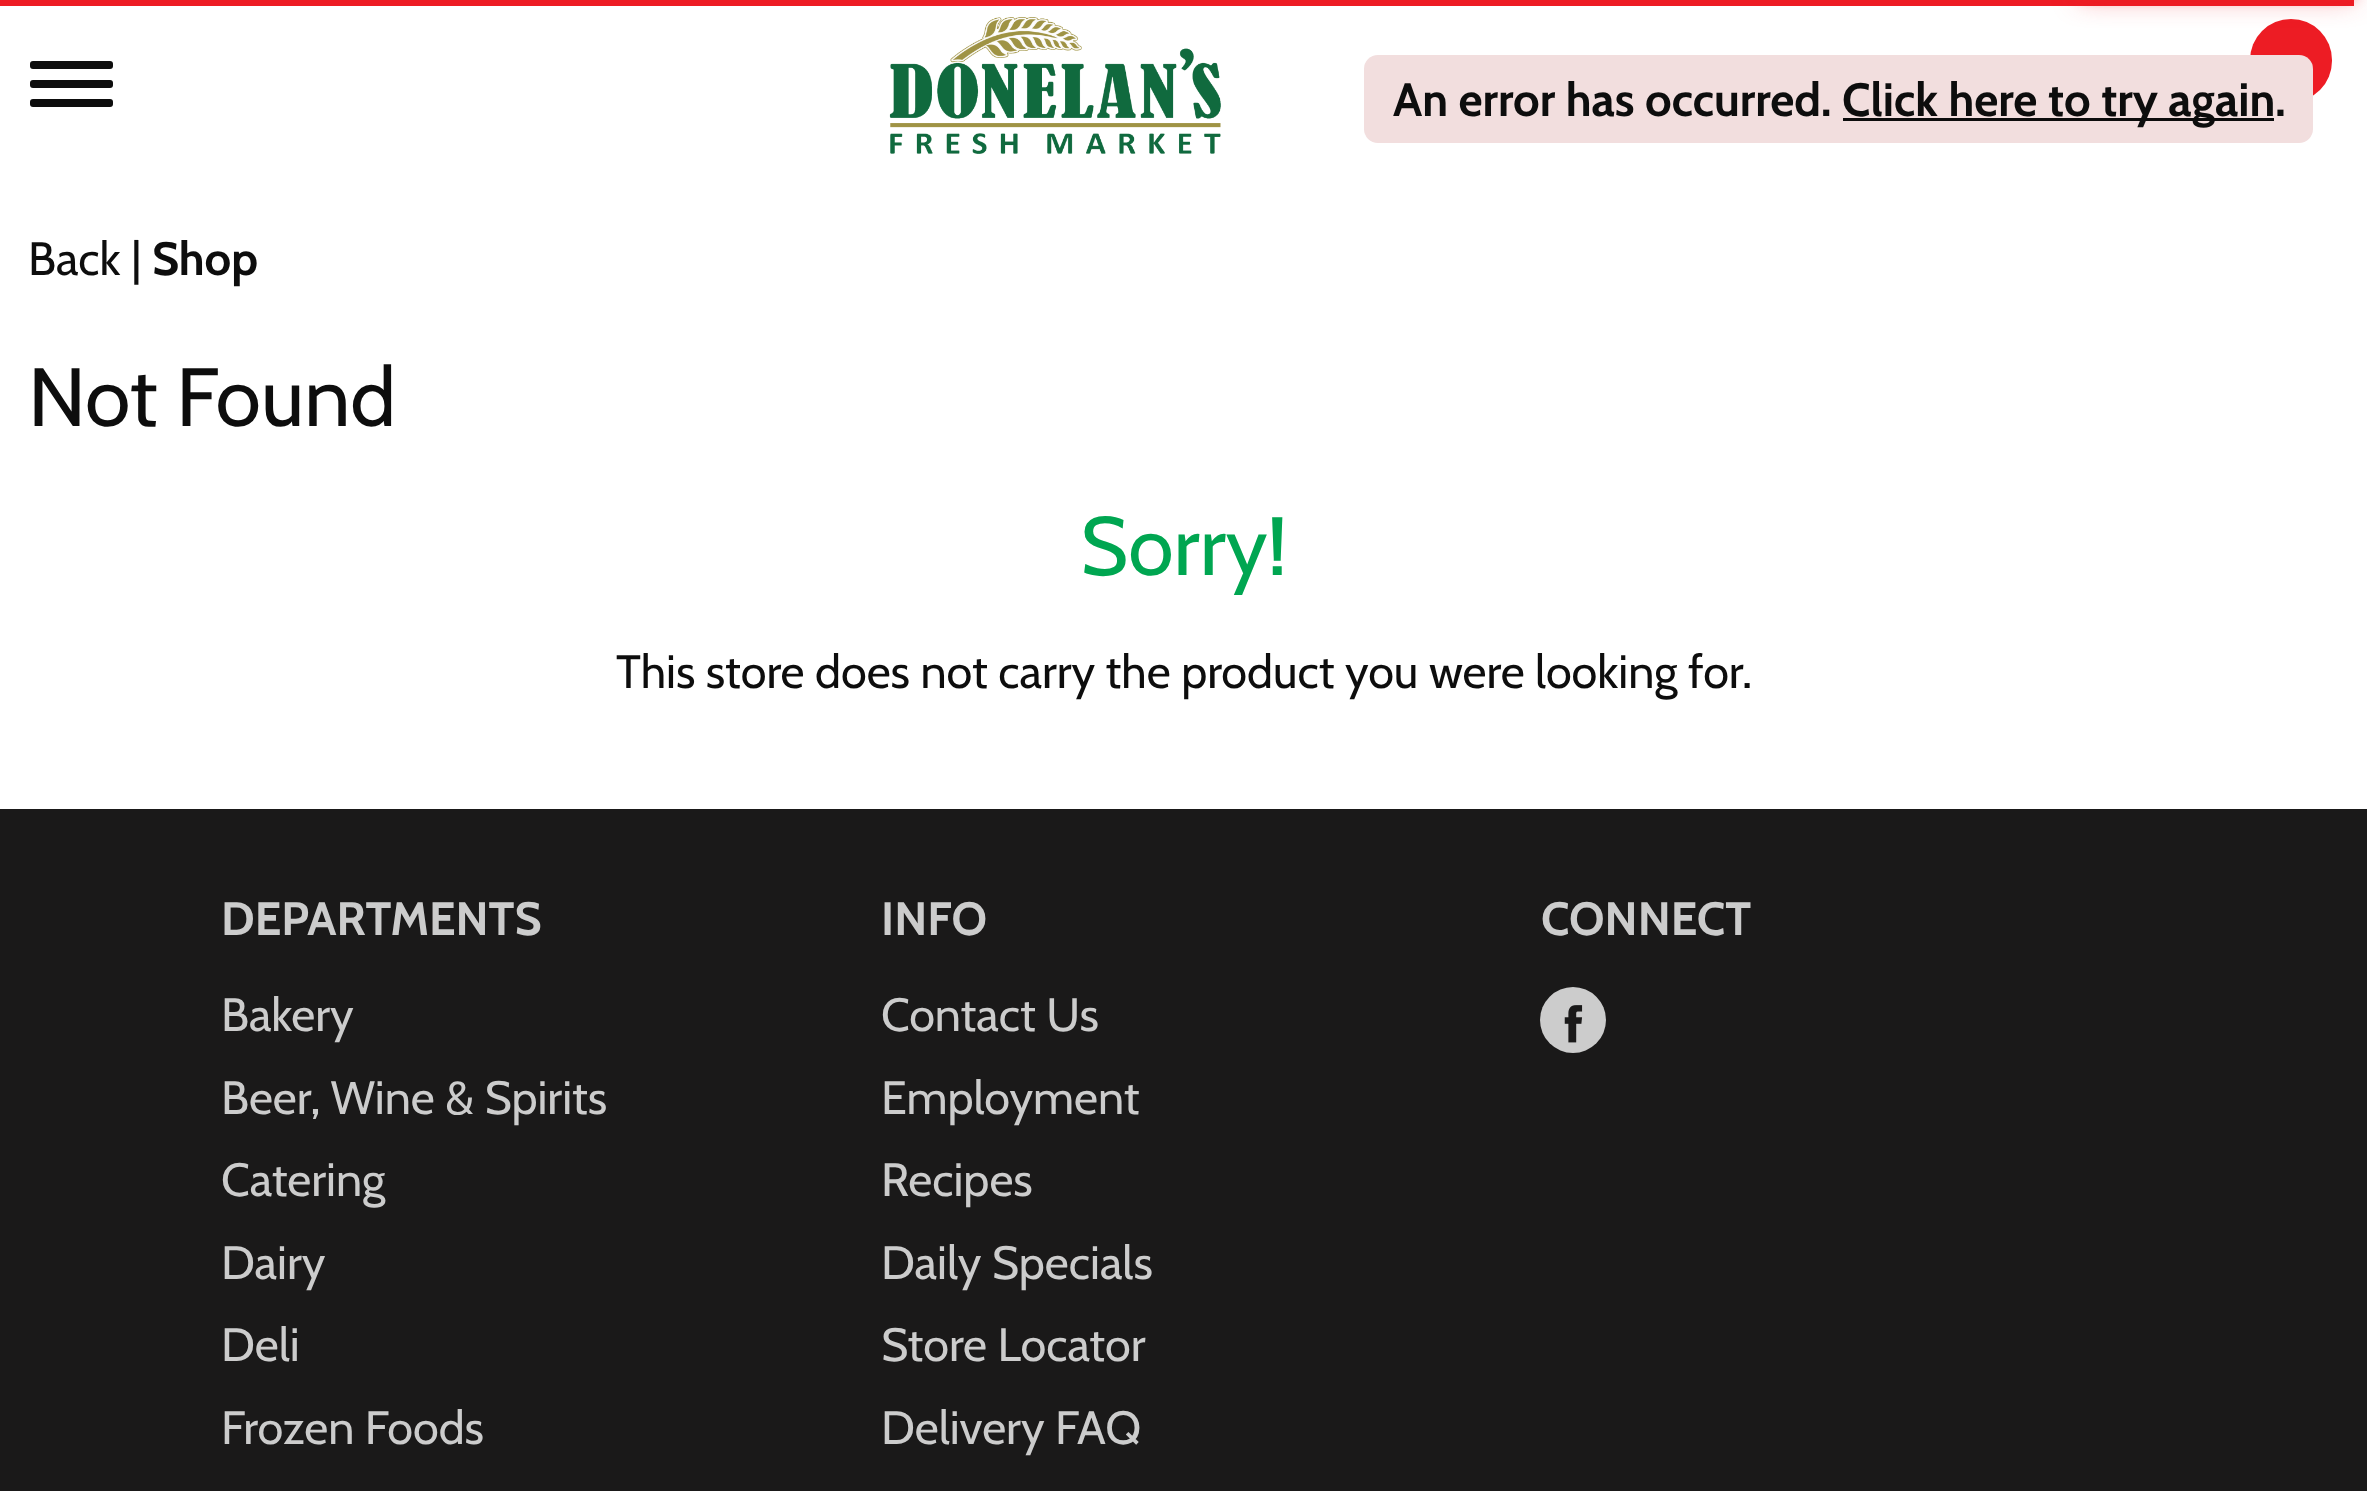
(async () => {
  const canvas = document.querySelector("canvas");
  canvas.width = 2367;
  canvas.height = 1491;
  const ctx = canvas.getContext("2d");
  ctx.miterLimit = 4;
  ctx.fontKerning = "normal";
  async function loadImage(src) {
    const img = new Image();
    img.src = src;
    await img.decode();
    return img;
  }
  let path;

  ctx.fillStyle = "#ffffff";
  ctx.fillRect(0, 0, 2367, 1491);
  ctx.fillStyle = "#ed1c24";
  ctx.fillRect(0, 0, 2354, 6);
  ctx.save();
  path = new Path2D("M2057 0H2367V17H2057ZM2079.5-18L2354-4V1.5L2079-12.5Z");
  ctx.clip(path, "evenodd");
  ctx.filter = "blur(7px)";
  ctx.beginPath();
  ctx.rect(2079, -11, 275, 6);
  ctx.fill();
  ctx.filter = "none";
  ctx.restore();
  ctx.beginPath();
  ctx.roundRect(2250, 19, 82, 83, 41);
  ctx.fill();
  ctx.save();
  path = new Path2D("M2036 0H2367V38H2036ZM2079.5-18L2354-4V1.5L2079-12.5Z");
  ctx.clip(path, "evenodd");
  ctx.filter = "blur(14px)";
  ctx.beginPath();
  ctx.rect(2079, -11, 275, 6);
  ctx.fill();
  ctx.filter = "none";
  ctx.restore();
  ctx.fillStyle = "#f2dede";
  ctx.beginPath();
  ctx.roundRect(1364, 55, 949, 88, 14);
  ctx.fill();
  ctx.fillStyle = "#0d0d0d";
  ctx.fillRect(1843, 118, 431, 3);
  ctx.beginPath();
  ctx.roundRect(30, 61, 83, 8, 3);
  ctx.fill();
  ctx.beginPath();
  ctx.roundRect(30, 80, 83, 8, 3);
  ctx.fill();
  ctx.beginPath();
  ctx.roundRect(30, 99, 83, 8, 3);
  ctx.fill();
  ctx.drawImage(await loadImage("img/1.png"), 889, 16, 332, 138);
  ctx.fillStyle = "#1a1919";
  ctx.fillRect(0, 809, 2367, 682);
  ctx.fillStyle = "#cccccc";
  ctx.beginPath();
  ctx.arc(1573, 1020, 33, 0, Math.PI * 2);
  ctx.fill();
  ctx.drawImage(await loadImage("img/2.png"), 1564, 1005, 19, 38);
  ctx.font = "bold 46.75px Cabin";
  ctx.fillStyle = "#0d0d0d";
  ctx.fillText("An error has occurred.", 1393, 116);
  ctx.fillText("Click here to try again.", 1842, 116);
  ctx.font = "46.75px Cabin";
  ctx.fillText("Back |", 28, 275);
  ctx.font = "bold 46.75px Cabin";
  ctx.fillText("Shop", 152, 275);
  ctx.font = "82.5px Cabin";
  ctx.fillText("Not Found", 28, 426);
  ctx.fillStyle = "#00a651";
  ctx.fillText("Sorry!", 1080, 575);
  ctx.font = "46.75px Cabin";
  ctx.fillStyle = "#0d0d0d";
  ctx.fillText("This store does not carry the product you were looking for.", 616, 688);
  ctx.font = "bold 46.75px Cabin";
  ctx.fillStyle = "#cccccc";
  ctx.fillText("DEPARTMENTS", 221, 935);
  ctx.font = "46.75px Cabin";
  for (const [text, x, y] of [
    ["Bakery", 221, 1031],
    ["Beer, Wine & Spirits", 221, 1114],
    ["Catering", 221, 1196],
    ["Dairy", 221, 1279],
    ["Deli", 221, 1361],
    ["Frozen Foods", 221, 1444],
  ]) {
    ctx.fillText(text, x, y);
  }
  ctx.font = "bold 46.75px Cabin";
  ctx.fillText("INFO", 881, 935);
  ctx.font = "46.75px Cabin";
  for (const [text, x, y] of [
    ["Contact Us", 881, 1031],
    ["Employment", 881, 1114],
    ["Recipes", 881, 1196],
    ["Daily Specials", 881, 1279],
    ["Store Locator", 881, 1361],
    ["Delivery FAQ", 881, 1444],
  ]) {
    ctx.fillText(text, x, y);
  }
  ctx.font = "bold 46.75px Cabin";
  ctx.fillText("CONNECT", 1541, 935);
})();
